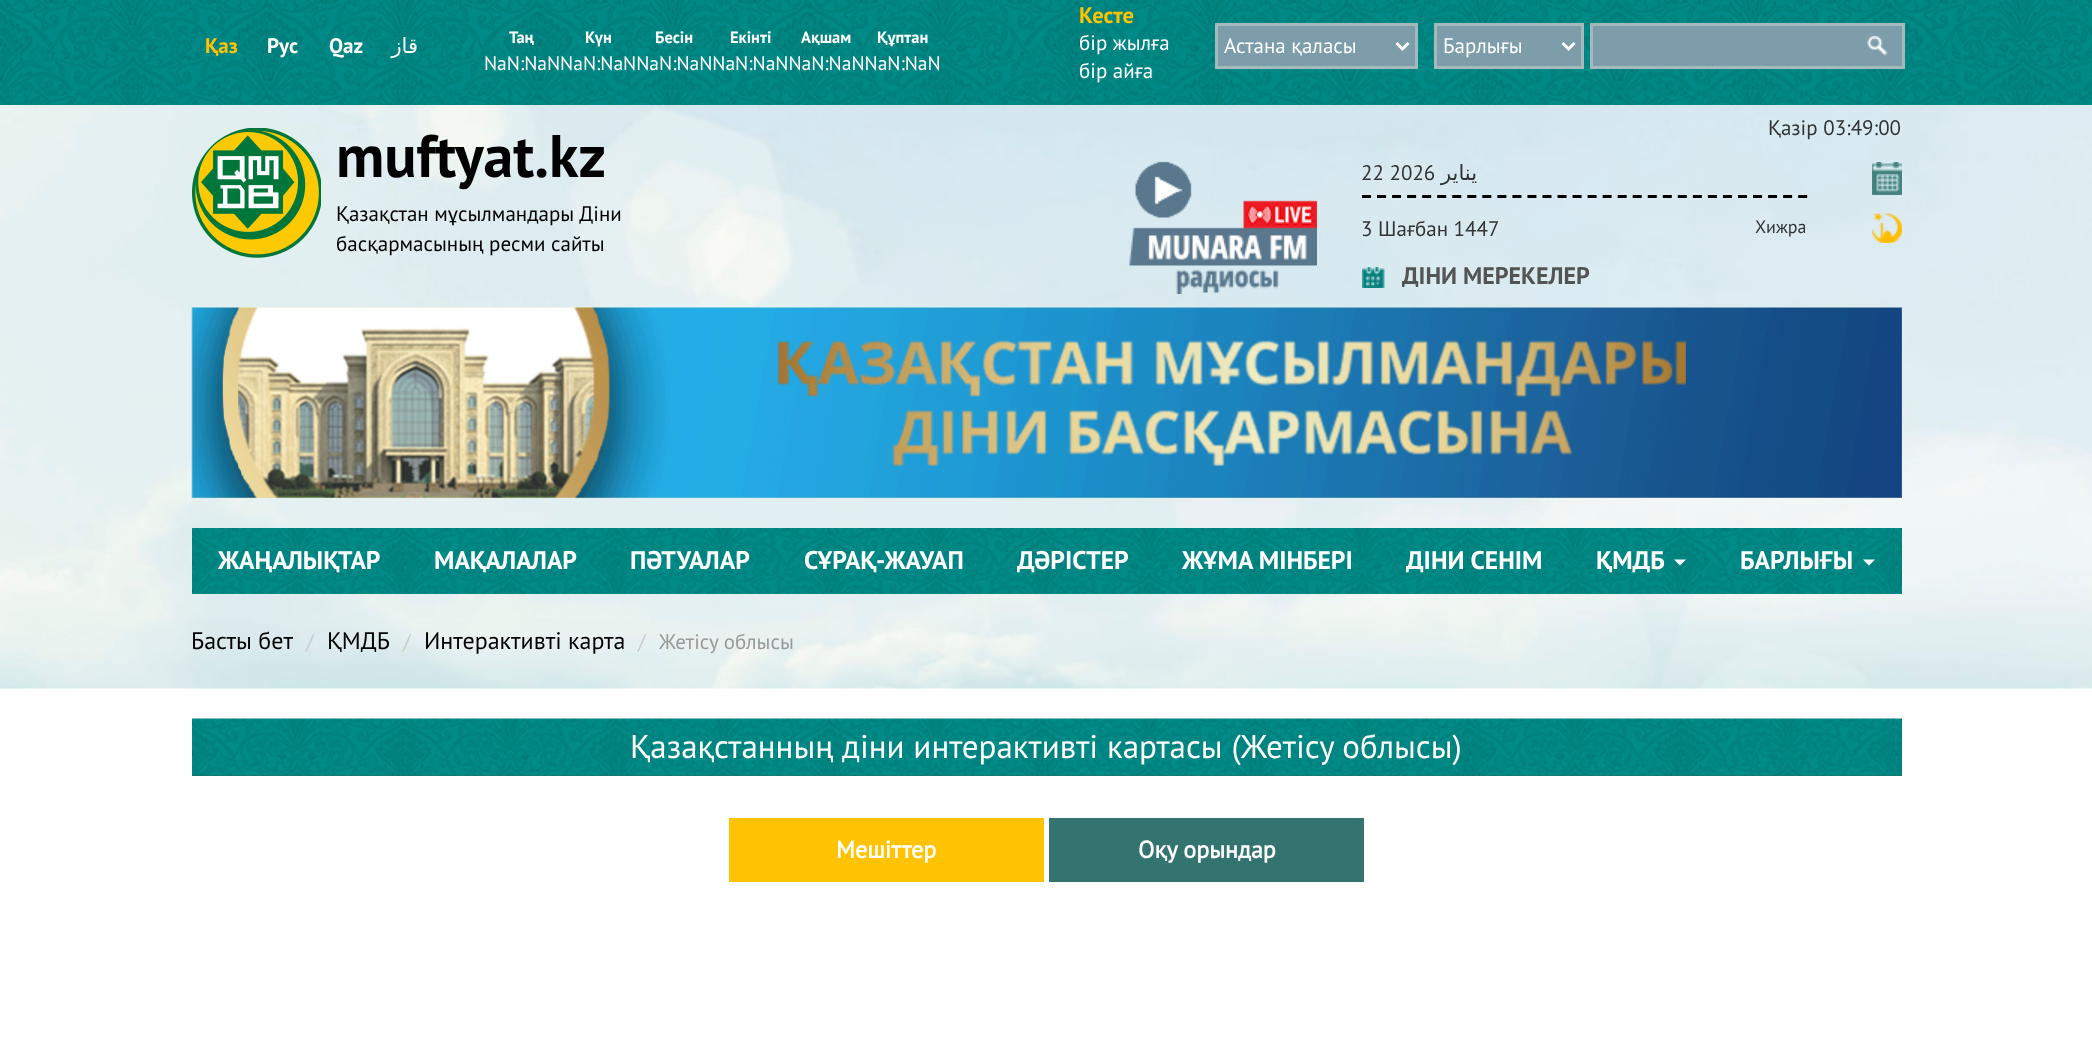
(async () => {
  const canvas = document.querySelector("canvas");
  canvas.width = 2092;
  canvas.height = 1058;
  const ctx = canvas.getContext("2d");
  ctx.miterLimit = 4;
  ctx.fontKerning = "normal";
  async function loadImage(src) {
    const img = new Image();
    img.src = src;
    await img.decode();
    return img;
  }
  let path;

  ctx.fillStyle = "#ffffff";
  ctx.fillRect(0, 0, 2092, 1058);
  ctx.drawImage(await loadImage("img/1.png"), 0, 0, 2092, 105);
  ctx.fillStyle = "#7d9daa";
  ctx.beginPath();
  ctx.rect(1216.5, 24.5, 200, 43);
  ctx.fill();
  ctx.strokeStyle = "#a2babb";
  ctx.lineWidth = 3;
  ctx.stroke();
  path = new Path2D("M1396.5 43L1402.5 49L1408.5 43");
  ctx.strokeStyle = "#ffffff";
  ctx.stroke(path);
  ctx.beginPath();
  ctx.rect(1435.5, 24.5, 147, 43);
  ctx.fill();
  ctx.strokeStyle = "#a2babb";
  ctx.stroke();
  path = new Path2D("M1562.5 43L1568.5 49L1574.5 43");
  ctx.strokeStyle = "#ffffff";
  ctx.stroke(path);
  ctx.fillRect(1593, 26, 309, 40);
  ctx.drawImage(await loadImage("img/2.png"), 1867, 35, 21, 21);
  ctx.strokeStyle = "#a2babb";
  ctx.strokeRect(1591.5, 24.5, 312, 43);
  ctx.drawImage(await loadImage("img/3.png"), 0, 105, 2092, 584);
  ctx.drawImage(await loadImage("img/4.png"), 192, 128, 129, 130);
  ctx.drawImage(await loadImage("img/6.png"), 1129, 200, 188, 94);
  ctx.drawImage(await loadImage("img/5.png"), 1135, 161, 57, 57);
  ctx.drawImage(await loadImage("img/7.png"), 1872, 162, 30, 33);
  path = new Path2D("M1362 196.5H1807.5");
  ctx.strokeStyle = "#000000";
  ctx.setLineDash([9, 6.04]);
  ctx.stroke(path);
  ctx.drawImage(await loadImage("img/8.png"), 1872, 213, 30, 30);
  ctx.drawImage(await loadImage("img/9.png"), 1362, 267, 23, 21);
  ctx.drawImage(await loadImage("img/11.png"), 192, 307, 1710, 191);
  ctx.drawImage(await loadImage("img/10.png"), 191, 307, 1711, 191);
  ctx.drawImage(await loadImage("img/12.png"), 192, 528, 1710, 66);
  ctx.fillStyle = "#ffffff";
  path = new Path2D("M1674 559.5H1686L1680 565.5Z");
  ctx.fill(path);
  path = new Path2D("M1863 559.5H1875L1869 565.5Z");
  ctx.fill(path);
  ctx.fillStyle = "#326763";
  ctx.fillRect(192, 775, 1710, 1);
  ctx.drawImage(await loadImage("img/13.png"), 192, 718, 1710, 58);
  ctx.fillStyle = "#ffc301";
  ctx.fillRect(729, 818, 315, 64);
  ctx.fillStyle = "#337470";
  ctx.fillRect(1049, 818, 315, 64);
  ctx.font = "bold 21px 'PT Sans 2'";
  ctx.fillStyle = "#ffc301";
  ctx.fillText("Қаз", 205, 53);
  ctx.fillStyle = "#ffffff";
  ctx.fillText("Рус", 267, 53);
  ctx.fillText("Qaz", 329, 53);
  ctx.direction = "rtl";
  ctx.font = "21px DejaVu Sans";
  ctx.fillText("قاز", 418, 53);
  ctx.direction = "ltr";
  ctx.font = "bold 16.5px 'PT Sans 2'";
  ctx.fillText("Таң", 509, 43);
  ctx.font = "19.5px PT Sans";
  ctx.fillText("NaN:NaNNaN:NaNNaN:NaNNaN:NaNNaN:NaNNaN:NaN", 484, 70);
  ctx.font = "bold 16.5px 'PT Sans 2'";
  for (const [text, x, y] of [
    ["Күн", 585, 43],
    ["Бесін", 655, 43],
    ["Екінті", 730, 43],
    ["Ақшам", 801, 43],
    ["Құптан", 877, 43],
  ]) {
    ctx.fillText(text, x, y);
  }
  ctx.font = "bold 22.5px 'PT Sans 2'";
  ctx.fillStyle = "#ffc301";
  ctx.fillText("Кесте", 1079, 23);
  ctx.font = "21px PT Sans";
  ctx.fillStyle = "#ffffff";
  for (const [text, x, y] of [
    ["бір жылға", 1079, 50],
    ["бір айға", 1079, 78],
    ["Астана қаласы", 1224, 53],
    ["Барлығы", 1443, 53],
  ]) {
    ctx.fillText(text, x, y);
  }
  ctx.font = "bold 60px 'PT Sans 2'";
  ctx.fillStyle = "#000000";
  ctx.fillText("muftyat.kz", 336, 177);
  ctx.font = "21px PT Sans";
  ctx.fillText("Қазақстан мұсылмандары Діни", 336, 221);
  ctx.fillText("басқармасының ресми сайты", 336, 251);
  ctx.fillStyle = "#333333";
  ctx.fillText("Қазір 03:49:00", 1768, 135);
  ctx.fillText("22 2026", 1361, 180);
  ctx.direction = "rtl";
  ctx.font = "21px DejaVu Sans";
  ctx.fillText("يناير", 1477, 180);
  ctx.direction = "ltr";
  ctx.font = "21px PT Sans";
  ctx.fillText("3 Шағбан 1447", 1361, 236);
  ctx.font = "18px PT Sans";
  ctx.fillText("Хижра", 1755, 233);
  ctx.font = "bold 24px 'PT Sans 2'";
  ctx.fillStyle = "#545454";
  ctx.fillText("ДІНИ МЕРЕКЕЛЕР", 1402, 284);
  ctx.font = "bold 25.5px 'PT Sans 2'";
  ctx.fillStyle = "#ffffff";
  for (const [text, x, y] of [
    ["ЖАҢАЛЫҚТАР", 218, 569],
    ["МАҚАЛАЛАР", 434, 569],
    ["ПӘТУАЛАР", 630, 569],
    ["СҰРАҚ-ЖАУАП", 804, 569],
    ["ДӘРІСТЕР", 1017, 569],
    ["ЖҰМА МІНБЕРІ", 1182, 569],
    ["ДІНИ СЕНІМ", 1406, 569],
    ["ҚМДБ", 1596, 569],
    ["БАРЛЫҒЫ", 1740, 569],
  ]) {
    ctx.fillText(text, x, y);
  }
  ctx.font = "24px PT Sans";
  ctx.fillStyle = "#000000";
  ctx.fillText("Басты бет", 191, 649);
  ctx.font = "21px PT Sans";
  ctx.fillStyle = "#cccccc";
  ctx.fillText("/", 306, 649);
  ctx.font = "24px PT Sans";
  ctx.fillStyle = "#000000";
  ctx.fillText("ҚМДБ", 327, 649);
  ctx.font = "21px PT Sans";
  ctx.fillStyle = "#cccccc";
  ctx.fillText("/", 403, 649);
  ctx.font = "24px PT Sans";
  ctx.fillStyle = "#000000";
  ctx.fillText("Интерактивті карта", 424, 649);
  ctx.font = "21px PT Sans";
  ctx.fillStyle = "#cccccc";
  ctx.fillText("/", 638, 649);
  ctx.fillStyle = "#999999";
  ctx.fillText("Жетісу облысы", 659, 649);
  ctx.font = "33px PT Sans";
  ctx.fillStyle = "#ffffff";
  ctx.fillText("Қазақстанның діни интерактивті картасы (Жетісу облысы)", 630, 758);
  ctx.font = "bold 24px PT Sans";
  ctx.fillText("Мешіттер", 836, 858);
  ctx.fillText("Оқу орындар", 1138, 858);
})();
